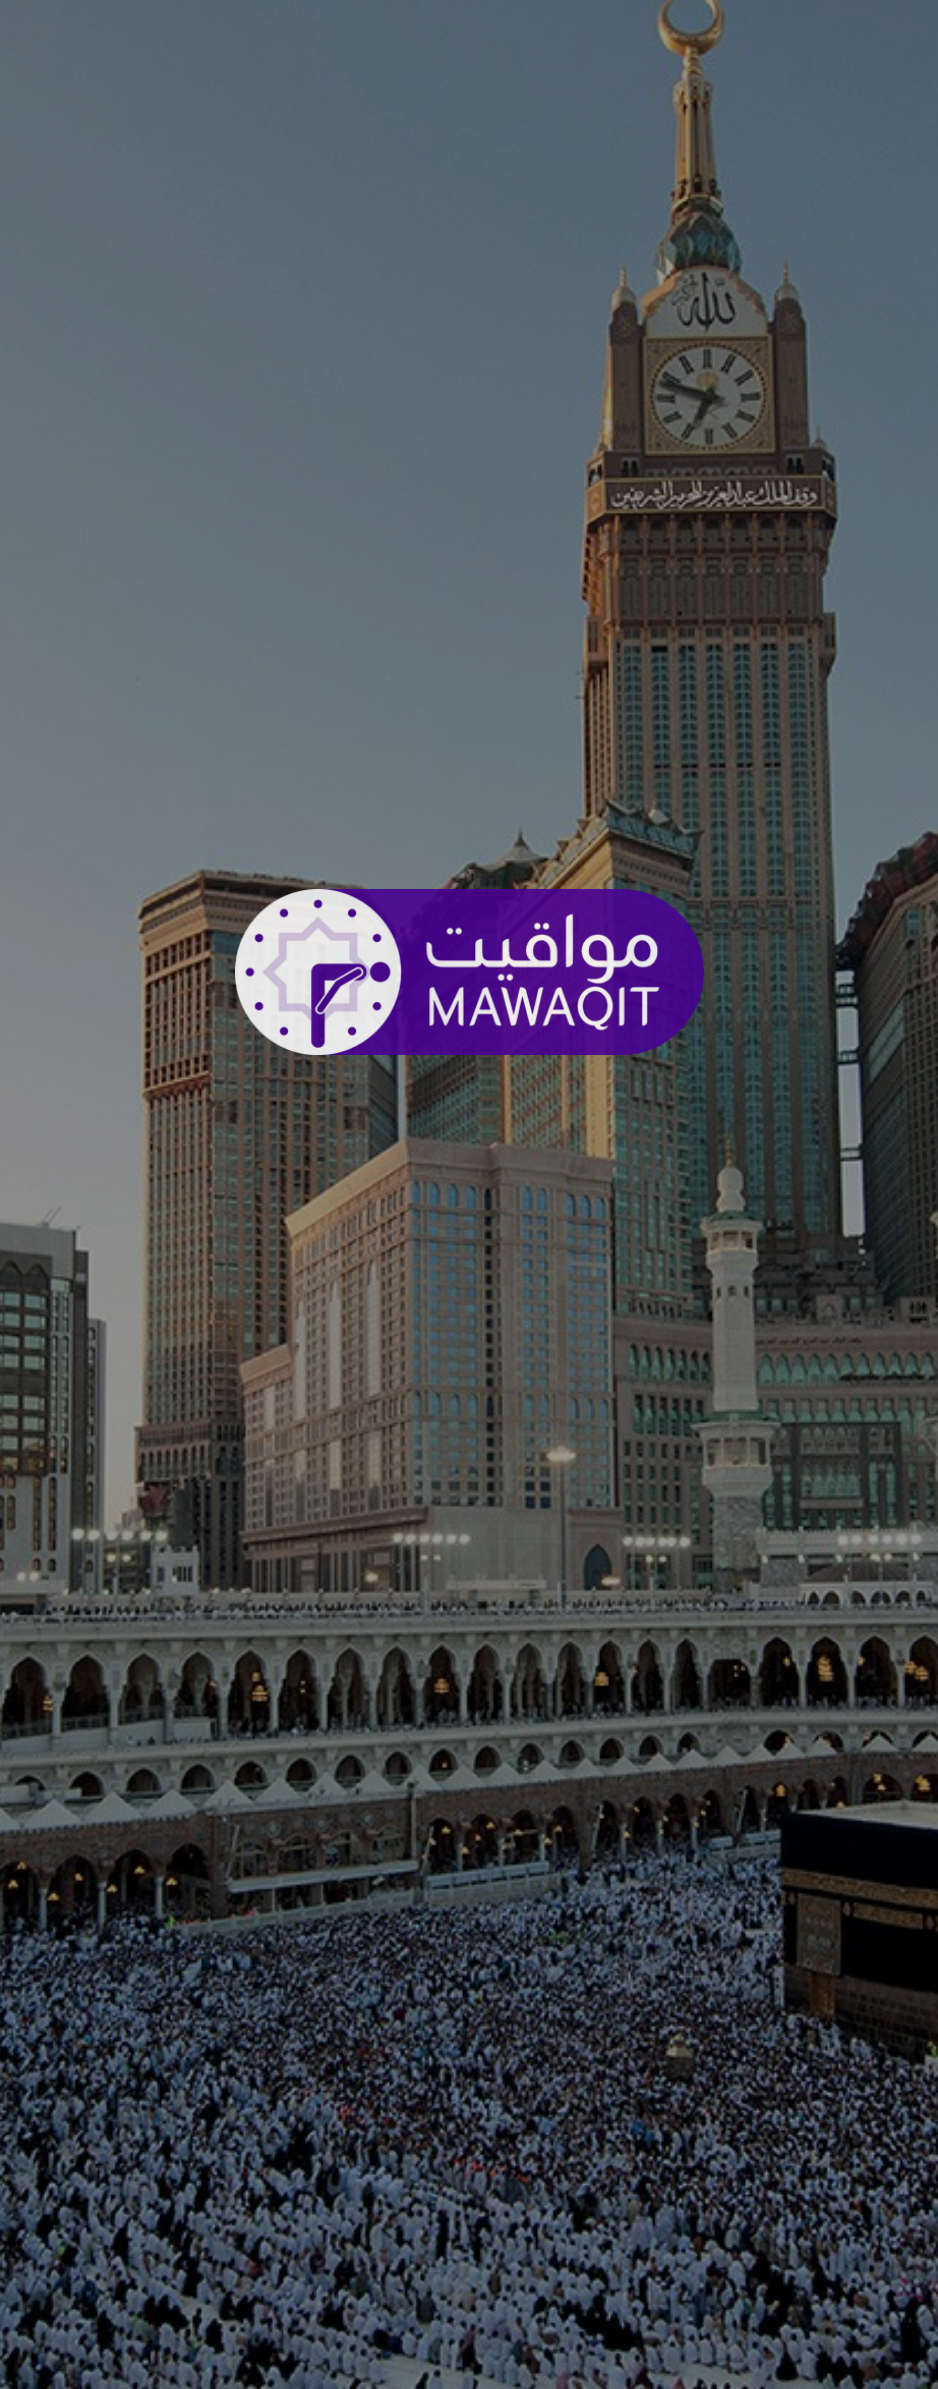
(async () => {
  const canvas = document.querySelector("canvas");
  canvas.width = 938;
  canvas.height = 2389;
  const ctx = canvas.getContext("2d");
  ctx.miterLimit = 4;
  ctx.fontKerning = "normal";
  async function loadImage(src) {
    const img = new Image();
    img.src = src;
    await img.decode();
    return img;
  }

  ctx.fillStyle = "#ffffff";
  ctx.fillRect(0, 0, 938, 2389);
  ctx.drawImage(await loadImage("img/1.png"), 0, 0, 938, 2389);
  ctx.drawImage(await loadImage("img/2.png"), 235, 889, 469, 166);
})();
